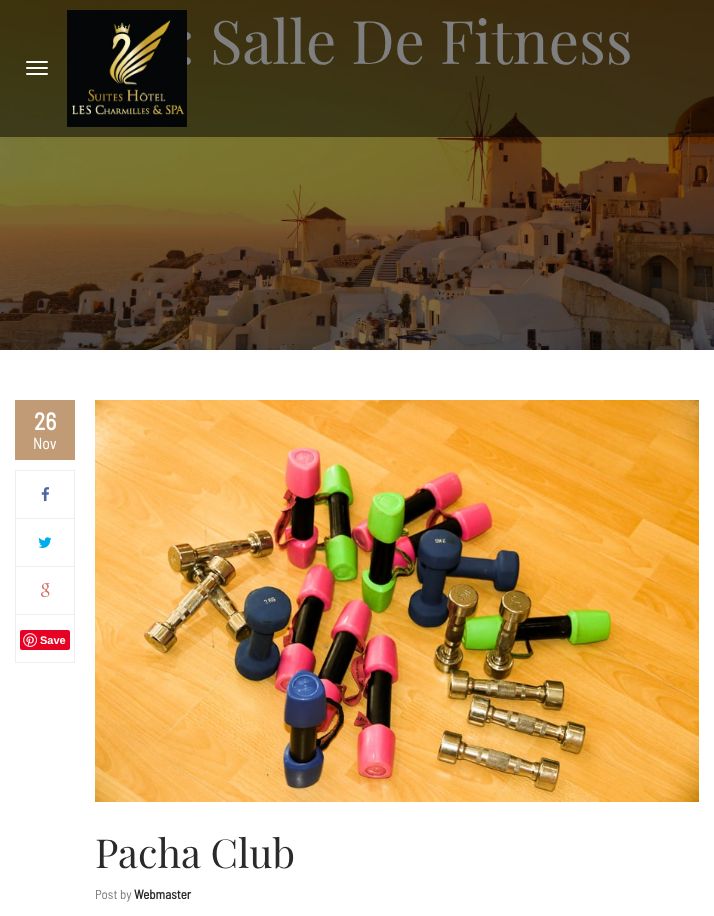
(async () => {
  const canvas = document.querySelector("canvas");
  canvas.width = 714;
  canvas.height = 916;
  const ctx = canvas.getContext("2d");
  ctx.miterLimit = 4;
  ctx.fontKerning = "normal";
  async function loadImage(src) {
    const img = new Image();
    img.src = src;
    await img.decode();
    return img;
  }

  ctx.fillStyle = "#ffffff";
  ctx.fillRect(0, 0, 714, 916);
  ctx.drawImage(await loadImage("img/2.png"), 0, 0, 714, 350);
  ctx.fillStyle = "#c19b76";
  ctx.fillRect(15, 400, 60, 60);
  ctx.strokeStyle = "#eeeeee";
  ctx.strokeRect(15.5, 470.5, 59, 192);
  ctx.fillStyle = "#eeeeee";
  ctx.fillRect(16, 518, 58, 1);
  ctx.drawImage(await loadImage("img/3.png"), 41, 487, 9, 15);
  ctx.fillRect(16, 566, 58, 1);
  ctx.drawImage(await loadImage("img/4.png"), 38, 537, 14, 11);
  ctx.fillRect(16, 614, 58, 1);
  ctx.drawImage(await loadImage("img/5.png"), 40, 583, 10, 15);
  ctx.fillStyle = "#e60023";
  ctx.beginPath();
  ctx.roundRect(20, 630, 50, 20, 2);
  ctx.fill();
  ctx.drawImage(await loadImage("img/6.png"), 23, 633, 14, 14);
  ctx.drawImage(await loadImage("img/7.png"), 95, 400, 604, 402);
  ctx.font = "60px Playfair Display";
  ctx.fillStyle = "#ffffff";
  ctx.fillText(": Salle De Fitness", 179, 64);
  ctx.fillStyle = "rgba(0, 0, 0, 0.5)";
  ctx.fillRect(0, 0, 714, 137);
  ctx.fillStyle = "#ffffff";
  ctx.beginPath();
  ctx.roundRect(26, 73, 22, 2, 1);
  ctx.fill();
  ctx.beginPath();
  ctx.roundRect(26, 67, 22, 2, 1);
  ctx.fill();
  ctx.beginPath();
  ctx.roundRect(26, 61, 22, 2, 1);
  ctx.fill();
  ctx.drawImage(await loadImage("img/1.png"), 67, 10, 120, 117);
  ctx.font = "bold 24px Barlow Semi Condensed";
  ctx.fillText("26", 34, 430);
  ctx.font = "16px Barlow Semi Condensed";
  ctx.fillText("Nov", 33, 449);
  ctx.font = "bold 11px Liberation Sans";
  ctx.fillText("Save", 40, 644);
  ctx.font = "40px Playfair Display";
  ctx.fillStyle = "#2a2a2a";
  ctx.fillText("Pacha Club", 95, 868);
  ctx.font = "13px Barlow Semi Condensed";
  ctx.fillStyle = "#7a7a7a";
  ctx.fillText("Post by", 95, 899);
  ctx.font = "bold 13px Barlow Semi Condensed";
  ctx.fillStyle = "#2a2a2a";
  ctx.fillText("Webmaster", 134, 899);
})();
